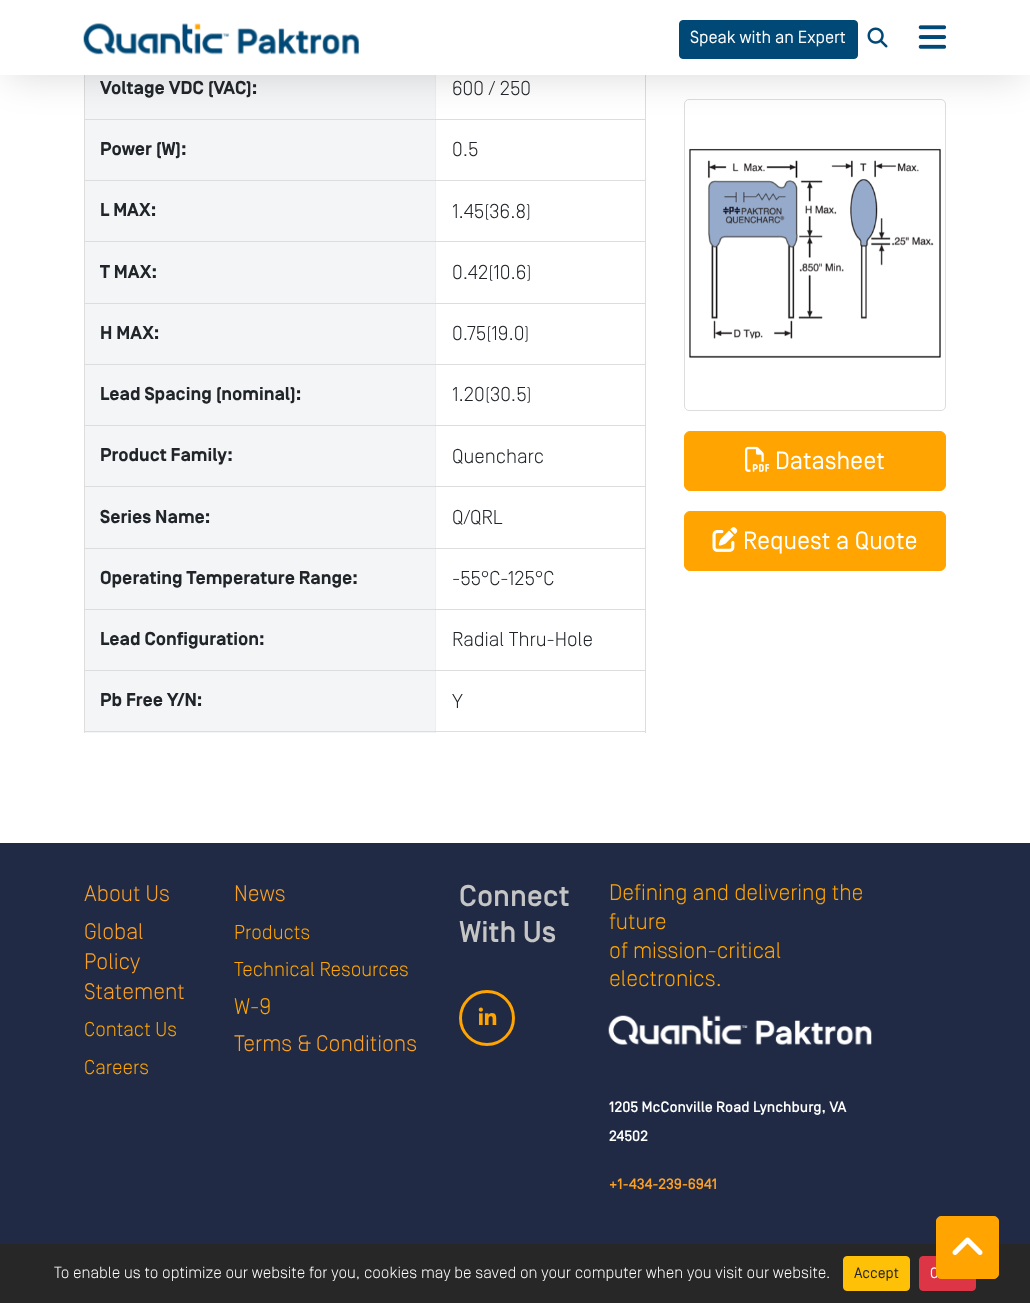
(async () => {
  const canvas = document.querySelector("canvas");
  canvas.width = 1030;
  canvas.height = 1303;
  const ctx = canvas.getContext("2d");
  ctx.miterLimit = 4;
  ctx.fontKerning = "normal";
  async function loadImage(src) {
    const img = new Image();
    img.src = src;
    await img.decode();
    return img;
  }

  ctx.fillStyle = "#ffffff";
  ctx.fillRect(0, 0, 1030, 1303);
  for (const [x, y, w, h, color] of [
    [645, 75, 1, 658, "#dddddd"],
    [84, 75, 1, 658, "#dddddd"],
    [85, 75, 350, 44, "#f3f5f7"],
    [435, 670, 1, 63, "#eeeeee"],
    [435, 670, 211, 1, "#dddddd"],
    [435, 609, 1, 62, "#eeeeee"],
    [435, 609, 211, 1, "#dddddd"],
    [435, 548, 1, 62, "#eeeeee"],
    [435, 548, 211, 1, "#dddddd"],
    [435, 486, 1, 63, "#eeeeee"],
    [435, 486, 211, 1, "#dddddd"],
    [435, 425, 1, 63, "#eeeeee"],
    [435, 425, 211, 1, "#dddddd"],
    [435, 364, 1, 62, "#eeeeee"],
    [435, 364, 211, 1, "#dddddd"],
    [435, 303, 1, 62, "#eeeeee"],
    [435, 303, 211, 1, "#dddddd"],
    [435, 241, 1, 63, "#eeeeee"],
    [435, 241, 211, 1, "#dddddd"],
    [435, 180, 1, 63, "#eeeeee"],
    [435, 180, 211, 1, "#dddddd"],
    [435, 119, 1, 62, "#eeeeee"],
    [435, 119, 211, 1, "#dddddd"],
    [435, 75, 1, 45, "#eeeeee"],
    [84, 119, 352, 1, "#dddddd"],
    [85, 120, 350, 60, "#f3f5f7"],
  ]) {
    ctx.fillStyle = color;
    ctx.fillRect(x, y, w, h);
  }
  ctx.beginPath();
  ctx.roundRect(684.5, 99.5, 261, 311, 4.5);
  ctx.strokeStyle = "#dddddd";
  ctx.stroke();
  ctx.fillStyle = "rgba(0, 0, 0, 0.15)";
  ctx.filter = "blur(19px)";
  ctx.beginPath();
  ctx.rect(8, 16, 1015, 60);
  ctx.fill();
  ctx.filter = "none";
  ctx.fillStyle = "#ffffff";
  ctx.fillRect(0, 0, 1030, 75);
  ctx.drawImage(await loadImage("img/1.png"), 83, 23, 276, 32);
  ctx.fillStyle = "#004976";
  ctx.beginPath();
  ctx.roundRect(679.5, 20.5, 178, 38, 3.5);
  ctx.fill();
  ctx.strokeStyle = "#004976";
  ctx.stroke();
  ctx.drawImage(await loadImage("img/2.png"), 867, 27, 21, 21);
  ctx.drawImage(await loadImage("img/3.png"), 918, 25, 29, 24);
  for (const [x, y, w, h, color] of [
    [436, 731, 210, 1, "#dddddd"],
    [84, 180, 352, 1, "#dddddd"],
    [85, 181, 350, 122, "#f3f5f7"],
    [84, 241, 352, 1, "#dddddd"],
    [84, 303, 352, 1, "#dddddd"],
    [85, 304, 350, 60, "#f3f5f7"],
    [84, 364, 352, 1, "#dddddd"],
    [85, 365, 350, 60, "#f3f5f7"],
    [84, 425, 352, 1, "#dddddd"],
    [85, 426, 350, 122, "#f3f5f7"],
    [84, 486, 352, 1, "#dddddd"],
    [84, 548, 352, 1, "#dddddd"],
    [85, 549, 350, 60, "#f3f5f7"],
    [84, 609, 352, 1, "#dddddd"],
    [85, 610, 350, 60, "#f3f5f7"],
    [84, 670, 352, 1, "#dddddd"],
    [85, 671, 350, 62, "#f3f5f7"],
    [84, 731, 352, 1, "#dddddd"],
  ]) {
    ctx.fillStyle = color;
    ctx.fillRect(x, y, w, h);
  }
  ctx.drawImage(await loadImage("img/4.png"), 689, 148, 252, 210);
  ctx.fillStyle = "#ffa400";
  ctx.beginPath();
  ctx.roundRect(684.5, 431.5, 261, 59, 5.5);
  ctx.fill();
  ctx.strokeStyle = "#ffa400";
  ctx.stroke();
  ctx.drawImage(await loadImage("img/5.png"), 745, 446, 25, 26);
  ctx.beginPath();
  ctx.roundRect(684.5, 511.5, 261, 59, 5.5);
  ctx.fill();
  ctx.stroke();
  ctx.drawImage(await loadImage("img/6.png"), 712, 527, 26, 25);
  ctx.fillStyle = "#202a44";
  ctx.fillRect(0, 843, 1030, 401);
  ctx.beginPath();
  ctx.arc(487, 1018, 26.5, 0, Math.PI * 2);
  ctx.lineWidth = 3;
  ctx.stroke();
  ctx.drawImage(await loadImage("img/7.png"), 478, 1007, 19, 18);
  ctx.drawImage(await loadImage("img/8.png"), 608, 1015, 264, 30);
  ctx.fillStyle = "#272727";
  ctx.fillRect(0, 1244, 1030, 59);
  ctx.fillStyle = "#ffc107";
  ctx.beginPath();
  ctx.roundRect(843.5, 1256.5, 66, 34, 3.5);
  ctx.fill();
  ctx.strokeStyle = "#ffc107";
  ctx.lineWidth = 1;
  ctx.stroke();
  ctx.fillStyle = "#dc3545";
  ctx.beginPath();
  ctx.roundRect(919.5, 1256.5, 56, 34, 3.5);
  ctx.fill();
  ctx.strokeStyle = "#dc3545";
  ctx.stroke();
  ctx.font = "17.5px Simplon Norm";
  ctx.fillStyle = "#ffffff";
  ctx.fillText("Speak with an Expert", 690, 43);
  ctx.font = "bold 18.75px Simplon Norm";
  ctx.fillStyle = "#212529";
  ctx.fillText("Voltage VDC (VAC):", 100, 94);
  ctx.font = "300 20px Simplon Norm";
  ctx.fillText("600 / 250", 452, 95);
  ctx.font = "bold 18.75px Simplon Norm";
  ctx.fillText("Power (W):", 100, 155);
  ctx.font = "300 20px Simplon Norm";
  ctx.fillText("0.5", 452, 156);
  ctx.font = "bold 18.75px Simplon Norm";
  ctx.fillText("L MAX:", 100, 216);
  ctx.font = "300 20px Simplon Norm";
  ctx.fillText("1.45(36.8)", 452, 218);
  ctx.font = "bold 18.75px Simplon Norm";
  ctx.fillText("T MAX:", 100, 278);
  ctx.font = "300 20px Simplon Norm";
  ctx.fillText("0.42(10.6)", 452, 279);
  ctx.font = "bold 18.75px Simplon Norm";
  ctx.fillText("H MAX:", 100, 339);
  ctx.font = "300 20px Simplon Norm";
  ctx.fillText("0.75(19.0)", 452, 340);
  ctx.font = "bold 18.75px Simplon Norm";
  ctx.fillText("Lead Spacing (nominal):", 100, 400);
  ctx.font = "300 20px Simplon Norm";
  ctx.fillText("1.20(30.5)", 452, 401);
  ctx.font = "bold 18.75px Simplon Norm";
  ctx.fillText("Product Family:", 100, 461);
  ctx.font = "300 20px Simplon Norm";
  ctx.fillText("Quencharc", 452, 463);
  ctx.font = "bold 18.75px Simplon Norm";
  ctx.fillText("Series Name:", 100, 523);
  ctx.font = "300 20px Simplon Norm";
  ctx.fillText("Q/QRL", 452, 524);
  ctx.font = "bold 18.75px Simplon Norm";
  ctx.fillText("Operating Temperature Range:", 100, 584);
  ctx.font = "300 20px Simplon Norm";
  ctx.fillText("-55°C-125°C", 452, 585);
  ctx.font = "bold 18.75px Simplon Norm";
  ctx.fillText("Lead Configuration:", 100, 645);
  ctx.font = "300 20px Simplon Norm";
  ctx.fillText("Radial Thru-Hole", 452, 646);
  ctx.font = "bold 18.75px Simplon Norm";
  ctx.fillText("Pb Free Y/N:", 100, 706);
  ctx.font = "300 20px Simplon Norm";
  ctx.fillText("Y", 452, 708);
  ctx.font = "25px Simplon Norm";
  ctx.fillStyle = "#ffffff";
  ctx.fillText("Datasheet", 775, 469);
  ctx.fillText("Request a Quote", 743, 549);
  ctx.font = "300 22.5px Simplon Norm";
  ctx.fillStyle = "#fba026";
  for (const [text, x, y] of [
    ["About Us", 84, 901],
    ["Global", 84, 939],
    ["Policy", 84, 969],
    ["Statement", 84, 999],
  ]) {
    ctx.fillText(text, x, y);
  }
  ctx.font = "300 20px Simplon Norm";
  ctx.fillStyle = "#ffa400";
  ctx.fillText("Contact Us", 84, 1036);
  ctx.fillText("Careers", 84, 1074);
  ctx.font = "300 22.5px Simplon Norm";
  ctx.fillStyle = "#fba026";
  ctx.fillText("News", 234, 901);
  ctx.font = "300 20px Simplon Norm";
  ctx.fillStyle = "#ffa400";
  ctx.fillText("Products", 234, 939);
  ctx.fillText("Technical Resources", 234, 976);
  ctx.font = "300 22.5px Simplon Norm";
  ctx.fillText("W-9", 234, 1014);
  ctx.fillStyle = "#fba026";
  ctx.fillText("Terms & Conditions", 234, 1051);
  ctx.font = "500 30px Simplon Norm";
  ctx.fillStyle = "#c5c5c5";
  ctx.fillText("Connect", 459, 906);
  ctx.fillText("With Us", 459, 942);
  ctx.font = "300 22.5px Simplon Norm";
  ctx.fillStyle = "#ffa400";
  for (const [text, x, y] of [
    ["Defining and delivering the", 609, 900],
    ["future", 609, 929],
    ["of mission-critical", 609, 958],
    ["electronics.", 609, 986],
  ]) {
    ctx.fillText(text, x, y);
  }
  ctx.font = "500 15px Simplon Norm";
  ctx.fillStyle = "#ffffff";
  ctx.fillText("1205 McConville Road Lynchburg, VA", 609, 1112);
  ctx.fillText("24502", 609, 1141);
  ctx.fillStyle = "#fba026";
  ctx.fillText("+1-434-239-6941", 609, 1189);
  ctx.font = "300 16.25px Simplon Norm";
  ctx.fillStyle = "#ffffff";
  ctx.fillText("To enable us to optimize our website for you, cookies may be saved on your computer when you visit our website.", 54, 1278);
  ctx.font = "15px Simplon Norm";
  ctx.fillStyle = "#212529";
  ctx.fillText("Accept", 854, 1278);
  ctx.fillStyle = "#ffffff";
  ctx.fillText("C", 930, 1278);
  ctx.fillStyle = "#ffa400";
  ctx.beginPath();
  ctx.roundRect(936.5, 1216.5, 62, 62, 4.5);
  ctx.fill();
  ctx.strokeStyle = "#ffa400";
  ctx.stroke();
  ctx.drawImage(await loadImage("img/9.png"), 952, 1237, 31, 18);
})();
